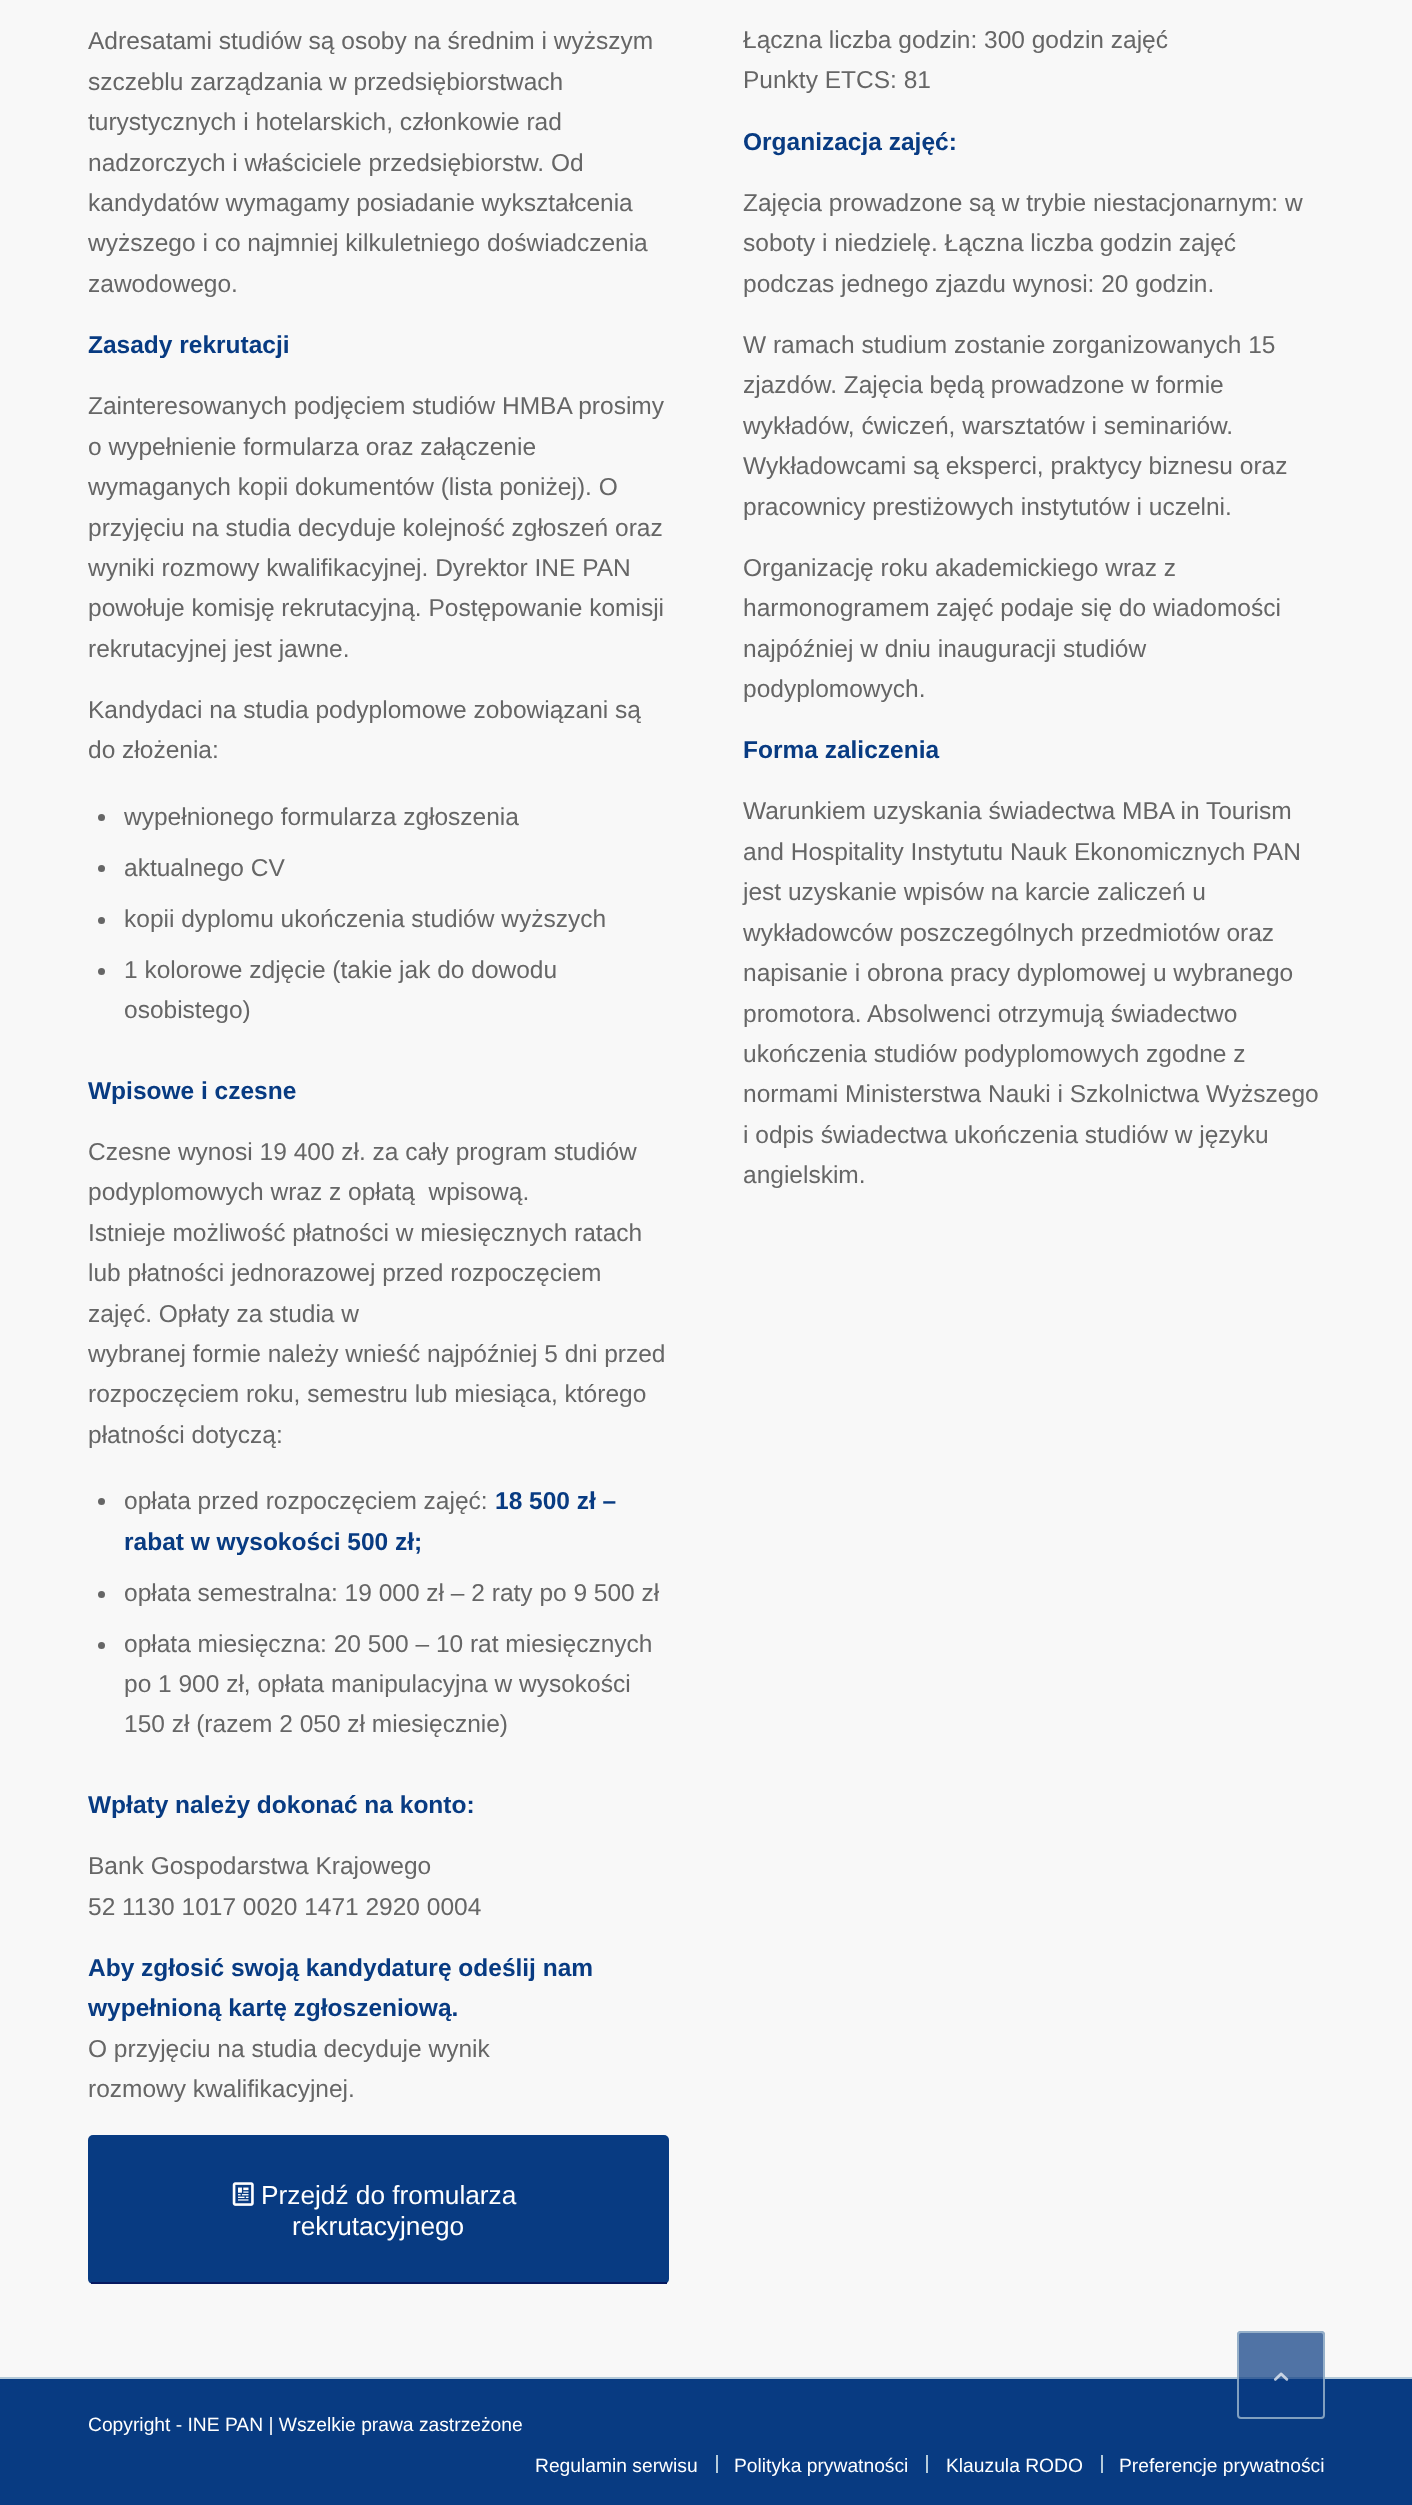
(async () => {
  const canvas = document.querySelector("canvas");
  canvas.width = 1412;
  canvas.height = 2505;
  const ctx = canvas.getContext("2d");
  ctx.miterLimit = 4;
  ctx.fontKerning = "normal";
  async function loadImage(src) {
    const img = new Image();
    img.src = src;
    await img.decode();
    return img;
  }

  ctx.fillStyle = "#f8f8f8";
  ctx.fillRect(0, 0, 1412, 2505);
  ctx.fillStyle = "#666666";
  ctx.beginPath();
  ctx.arc(101.5, 817.5, 3.5, 0, Math.PI * 2);
  ctx.fill();
  ctx.beginPath();
  ctx.arc(101.5, 868.5, 3.5, 0, Math.PI * 2);
  ctx.fill();
  ctx.beginPath();
  ctx.arc(101.5, 920.5, 3.5, 0, Math.PI * 2);
  ctx.fill();
  ctx.beginPath();
  ctx.arc(101.5, 971.5, 3.5, 0, Math.PI * 2);
  ctx.fill();
  ctx.beginPath();
  ctx.arc(101.5, 1501.5, 3.5, 0, Math.PI * 2);
  ctx.fill();
  ctx.beginPath();
  ctx.arc(101.5, 1594.5, 3.5, 0, Math.PI * 2);
  ctx.fill();
  ctx.beginPath();
  ctx.arc(101.5, 1645.5, 3.5, 0, Math.PI * 2);
  ctx.fill();
  ctx.fillStyle = "#083b82";
  ctx.beginPath();
  ctx.roundRect(88, 2135, 581, 149, 5);
  ctx.fill();
  ctx.fillStyle = "#061960";
  ctx.fillRect(91, 2282, 576, 2);
  ctx.drawImage(await loadImage("img/1.png"), 232, 2182, 22, 24);
  for (const [x, y, w, h, color] of [
    [0, 2379, 1412, 126, "#083b82"],
    [0, 2377, 1412, 2, "#b4cad9"],
    [716, 2455, 2, 18, "#b4cad9"],
    [926, 2455, 2, 18, "#b4cad9"],
    [1101, 2455, 2, 18, "#b4cad9"],
  ]) {
    ctx.fillStyle = color;
    ctx.fillRect(x, y, w, h);
  }
  ctx.fillStyle = "rgba(8, 59, 130, 0.7)";
  ctx.beginPath();
  ctx.roundRect(1237, 2331, 88, 88, 4);
  ctx.fill();
  ctx.beginPath();
  ctx.roundRect(1238, 2332, 86, 86, 3);
  ctx.strokeStyle = "rgba(180, 202, 217, 0.7)";
  ctx.lineWidth = 2;
  ctx.stroke();
  ctx.drawImage(await loadImage("img/2.png"), 1274, 2372, 15, 9);
  ctx.font = "24.5px Liberation Sans";
  ctx.fillStyle = "#666666";
  for (const [text, x, y] of [
    ["Adresatami studiów są osoby na średnim i wyższym", 88, 49],
    ["szczeblu zarządzania w przedsiębiorstwach", 88, 90],
    ["turystycznych i hotelarskich, członkowie rad", 88, 130],
    ["nadzorczych i właściciele przedsiębiorstw. Od", 88, 171],
    ["kandydatów wymagamy posiadanie wykształcenia", 88, 211],
    ["wyższego i co najmniej kilkuletniego doświadczenia", 88, 251],
    ["zawodowego.", 88, 292],
  ]) {
    ctx.fillText(text, x, y);
  }
  ctx.font = "bold 24.5px Liberation Sans";
  ctx.fillStyle = "#083b82";
  ctx.fillText("Zasady rekrutacji", 88, 353);
  ctx.font = "24.5px Liberation Sans";
  ctx.fillStyle = "#666666";
  for (const [text, x, y] of [
    ["Zainteresowanych podjęciem studiów HMBA prosimy", 88, 414],
    ["o wypełnienie formularza oraz załączenie", 88, 455],
    ["wymaganych kopii dokumentów (lista poniżej). O", 88, 495],
    ["przyjęciu na studia decyduje kolejność zgłoszeń oraz", 88, 536],
    ["wyniki rozmowy kwalifikacyjnej. Dyrektor INE PAN", 88, 576],
    ["powołuje komisję rekrutacyjną. Postępowanie komisji", 88, 616],
    ["rekrutacyjnej jest jawne.", 88, 657],
    ["Kandydaci na studia podyplomowe zobowiązani są", 88, 718],
    ["do złożenia:", 88, 758],
    ["wypełnionego formularza zgłoszenia", 124, 825],
    ["aktualnego CV", 124, 876],
    ["kopii dyplomu ukończenia studiów wyższych", 124, 927],
    ["1 kolorowe zdjęcie (takie jak do dowodu", 124, 978],
    ["osobistego)", 124, 1018],
  ]) {
    ctx.fillText(text, x, y);
  }
  ctx.font = "bold 24.5px Liberation Sans";
  ctx.fillStyle = "#083b82";
  ctx.fillText("Wpisowe i czesne", 88, 1099);
  ctx.font = "24.5px Liberation Sans";
  ctx.fillStyle = "#666666";
  for (const [text, x, y] of [
    ["Czesne wynosi 19 400 zł. za cały program studiów", 88, 1160],
    ["podyplomowych wraz z opłatą  wpisową.", 88, 1200],
    ["Istnieje możliwość płatności w miesięcznych ratach", 88, 1241],
    ["lub płatności jednorazowej przed rozpoczęciem", 88, 1281],
    ["zajęć. Opłaty za studia w", 88, 1322],
    ["wybranej formie należy wnieść najpóźniej 5 dni przed", 88, 1362],
    ["rozpoczęciem roku, semestru lub miesiąca, którego", 88, 1402],
    ["płatności dotyczą:", 88, 1443],
    ["opłata przed rozpoczęciem zajęć:", 124, 1509],
  ]) {
    ctx.fillText(text, x, y);
  }
  ctx.font = "bold 24.5px Liberation Sans";
  ctx.fillStyle = "#083b82";
  ctx.fillText("18 500 zł –", 495, 1509);
  ctx.fillText("rabat w wysokości 500 zł;", 124, 1550);
  ctx.font = "24.5px Liberation Sans";
  ctx.fillStyle = "#666666";
  for (const [text, x, y] of [
    ["opłata semestralna: 19 000 zł – 2 raty po 9 500 zł", 124, 1601],
    ["opłata miesięczna: 20 500 – 10 rat miesięcznych", 124, 1652],
    ["po 1 900 zł, opłata manipulacyjna w wysokości", 124, 1692],
    ["150 zł (razem 2 050 zł miesięcznie)", 124, 1732],
  ]) {
    ctx.fillText(text, x, y);
  }
  ctx.font = "bold 24.5px Liberation Sans";
  ctx.fillStyle = "#083b82";
  ctx.fillText("Wpłaty należy dokonać na konto:", 88, 1813);
  ctx.font = "24.5px Liberation Sans";
  ctx.fillStyle = "#666666";
  ctx.fillText("Bank Gospodarstwa Krajowego", 88, 1874);
  ctx.fillText("52 1130 1017 0020 1471 2920 0004", 88, 1915);
  ctx.font = "bold 24.5px Liberation Sans";
  ctx.fillStyle = "#083b82";
  ctx.fillText("Aby zgłosić swoją kandydaturę odeślij nam", 88, 1976);
  ctx.fillText("wypełnioną kartę zgłoszeniową.", 88, 2016);
  ctx.font = "24.5px Liberation Sans";
  ctx.fillStyle = "#666666";
  ctx.fillText("O przyjęciu na studia decyduje wynik", 88, 2057);
  ctx.fillText("rozmowy kwalifikacyjnej.", 88, 2097);
  ctx.font = "26.25px Liberation Sans";
  ctx.fillStyle = "#ffffff";
  ctx.fillText("Przejdź do fromularza", 261, 2204);
  ctx.fillText("rekrutacyjnego", 292, 2235);
  ctx.font = "24.5px Liberation Sans";
  ctx.fillStyle = "#666666";
  ctx.fillText("Łączna liczba godzin: 300 godzin zajęć", 743, 48);
  ctx.fillText("Punkty ETCS: 81", 743, 88);
  ctx.font = "bold 24.5px Liberation Sans";
  ctx.fillStyle = "#083b82";
  ctx.fillText("Organizacja zajęć:", 743, 150);
  ctx.font = "24.5px Liberation Sans";
  ctx.fillStyle = "#666666";
  for (const [text, x, y] of [
    ["Zajęcia prowadzone są w trybie niestacjonarnym: w", 743, 211],
    ["soboty i niedzielę. Łączna liczba godzin zajęć", 743, 251],
    ["podczas jednego zjazdu wynosi: 20 godzin.", 743, 292],
    ["W ramach studium zostanie zorganizowanych 15", 743, 353],
    ["zjazdów. Zajęcia będą prowadzone w formie", 743, 393],
    ["wykładów, ćwiczeń, warsztatów i seminariów.", 743, 434],
    ["Wykładowcami są eksperci, praktycy biznesu oraz", 743, 474],
    ["pracownicy prestiżowych instytutów i uczelni.", 743, 515],
    ["Organizację roku akademickiego wraz z", 743, 576],
    ["harmonogramem zajęć podaje się do wiadomości", 743, 616],
    ["najpóźniej w dniu inauguracji studiów", 743, 657],
    ["podyplomowych.", 743, 697],
  ]) {
    ctx.fillText(text, x, y);
  }
  ctx.font = "bold 24.5px Liberation Sans";
  ctx.fillStyle = "#083b82";
  ctx.fillText("Forma zaliczenia", 743, 758);
  ctx.font = "24.5px Liberation Sans";
  ctx.fillStyle = "#666666";
  for (const [text, x, y] of [
    ["Warunkiem uzyskania świadectwa MBA in Tourism", 743, 819],
    ["and Hospitality Instytutu Nauk Ekonomicznych PAN", 743, 860],
    ["jest uzyskanie wpisów na karcie zaliczeń u", 743, 900],
    ["wykładowców poszczególnych przedmiotów oraz", 743, 941],
    ["napisanie i obrona pracy dyplomowej u wybranego", 743, 981],
    ["promotora. Absolwenci otrzymują świadectwo", 743, 1022],
    ["ukończenia studiów podyplomowych zgodne z", 743, 1062],
    ["normami Ministerstwa Nauki i Szkolnictwa Wyższego", 743, 1102],
    ["i odpis świadectwa ukończenia studiów w języku", 743, 1143],
    ["angielskim.", 743, 1183],
  ]) {
    ctx.fillText(text, x, y);
  }
  ctx.font = "19.25px Liberation Sans";
  ctx.fillStyle = "#ffffff";
  for (const [text, x, y] of [
    ["Copyright - INE PAN | Wszelkie prawa zastrzeżone", 88, 2431],
    ["Regulamin serwisu", 535, 2472],
    ["Polityka prywatności", 734, 2472],
    ["Klauzula RODO", 946, 2472],
    ["Preferencje prywatności", 1119, 2472],
  ]) {
    ctx.fillText(text, x, y);
  }
})();
